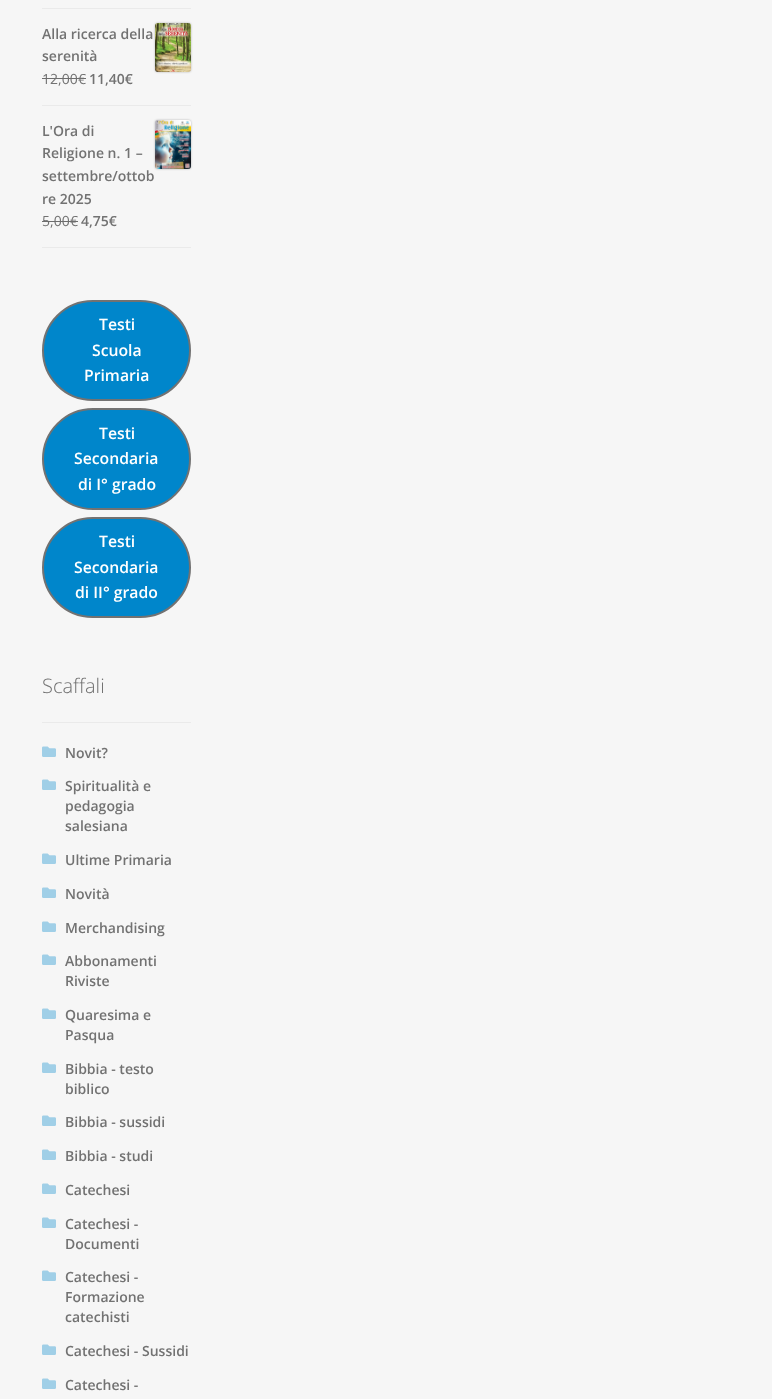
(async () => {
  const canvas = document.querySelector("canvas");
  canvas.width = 772;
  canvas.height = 1399;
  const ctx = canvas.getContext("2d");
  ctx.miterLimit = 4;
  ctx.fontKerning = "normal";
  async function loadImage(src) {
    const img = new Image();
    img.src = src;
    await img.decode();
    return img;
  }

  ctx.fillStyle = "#f6f6f6";
  ctx.fillRect(0, 0, 772, 1399);
  ctx.fillStyle = "#eaeaea";
  ctx.fillRect(42, 8, 149, 1);
  ctx.fillRect(42, 105, 149, 1);
  ctx.fillStyle = "rgba(0, 0, 0, 0.25)";
  ctx.filter = "blur(1px)";
  ctx.beginPath();
  ctx.roundRect(155, 23, 36, 49, 3);
  ctx.fill();
  ctx.filter = "none";
  ctx.drawImage(await loadImage("img/1.png"), 155, 23, 36, 49);
  ctx.fillStyle = "#eaeaea";
  ctx.fillRect(42, 247, 149, 1);
  ctx.fillStyle = "rgba(0, 0, 0, 0.25)";
  ctx.filter = "blur(1px)";
  ctx.beginPath();
  ctx.roundRect(155, 120, 36, 49, 3);
  ctx.fill();
  ctx.filter = "none";
  ctx.drawImage(await loadImage("img/2.png"), 155, 120, 36, 49);
  ctx.fillStyle = "#0086cb";
  ctx.beginPath();
  ctx.roundRect(43, 301, 147, 99, 49.5);
  ctx.fill();
  ctx.strokeStyle = "#727272";
  ctx.lineWidth = 2;
  ctx.stroke();
  ctx.beginPath();
  ctx.roundRect(43, 409, 147, 100, 50);
  ctx.fill();
  ctx.stroke();
  ctx.beginPath();
  ctx.roundRect(43, 518, 147, 99, 49.5);
  ctx.fill();
  ctx.stroke();
  ctx.fillStyle = "#eaeaea";
  ctx.fillRect(42, 722, 149, 1);
  ctx.drawImage(await loadImage("img/3.png"), 42, 746, 14, 11);
  ctx.drawImage(await loadImage("img/3.png"), 42, 779, 14, 11);
  ctx.drawImage(await loadImage("img/3.png"), 42, 853, 14, 11);
  ctx.drawImage(await loadImage("img/3.png"), 42, 887, 14, 11);
  ctx.drawImage(await loadImage("img/3.png"), 42, 921, 14, 11);
  ctx.drawImage(await loadImage("img/3.png"), 42, 954, 14, 11);
  ctx.drawImage(await loadImage("img/3.png"), 42, 1008, 14, 11);
  ctx.drawImage(await loadImage("img/3.png"), 42, 1062, 14, 11);
  ctx.drawImage(await loadImage("img/3.png"), 42, 1115, 14, 11);
  ctx.drawImage(await loadImage("img/3.png"), 42, 1149, 14, 11);
  ctx.drawImage(await loadImage("img/3.png"), 42, 1183, 14, 11);
  ctx.drawImage(await loadImage("img/3.png"), 42, 1217, 14, 11);
  ctx.drawImage(await loadImage("img/3.png"), 42, 1270, 14, 11);
  ctx.drawImage(await loadImage("img/3.png"), 42, 1344, 14, 11);
  ctx.drawImage(await loadImage("img/3.png"), 42, 1378, 14, 11);
  ctx.font = "600 14px Open Sans";
  ctx.fillStyle = "#727272";
  ctx.fillText("Alla ricerca della", 42, 39);
  ctx.fillText("serenità", 42, 61);
  ctx.font = "14px Open Sans";
  ctx.fillText("12,00", 42, 84);
  ctx.fillStyle = "#6d6d6d";
  ctx.fillRect(42, 78, 36, 1);
  ctx.fillStyle = "#727272";
  ctx.fillText("€", 78, 84);
  ctx.fillStyle = "#6d6d6d";
  ctx.fillRect(78, 78, 8, 1);
  ctx.font = "600 14px Open Sans";
  ctx.fillStyle = "#727272";
  for (const [text, x, y] of [
    ["11,40€", 89, 84],
    ["L'Ora di", 42, 136],
    ["Religione n. 1 –", 42, 158],
    ["settembre/ottob", 42, 181],
    ["re 2025", 42, 204],
  ]) {
    ctx.fillText(text, x, y);
  }
  ctx.font = "14px Open Sans";
  ctx.fillText("5,00", 42, 226);
  ctx.fillStyle = "#6d6d6d";
  ctx.fillRect(42, 221, 28, 1);
  ctx.fillStyle = "#727272";
  ctx.fillText("€", 70, 226);
  ctx.fillStyle = "#6d6d6d";
  ctx.fillRect(70, 221, 8, 1);
  ctx.font = "600 14px Open Sans";
  ctx.fillStyle = "#727272";
  ctx.fillText("4,75€", 81, 226);
  ctx.font = "600 15.75px Open Sans";
  ctx.fillStyle = "#ffffff";
  for (const [text, x, y] of [
    ["Testi", 99, 330],
    ["Scuola", 92, 356],
    ["Primaria", 84, 381],
    ["Testi", 99, 439],
    ["Secondaria", 74, 464],
    ["di I° grado", 78, 490],
    ["Testi", 99, 547],
    ["Secondaria", 74, 573],
    ["di II° grado", 75, 598],
  ]) {
    ctx.fillText(text, x, y);
  }
  ctx.font = "300 20px Open Sans";
  ctx.fillStyle = "#727272";
  ctx.fillText("Scaffali", 42, 693);
  ctx.font = "600 14px Open Sans";
  for (const [text, x, y] of [
    ["Novit?", 65, 758],
    ["Spiritualità e", 65, 791],
    ["pedagogia", 65, 811],
    ["salesiana", 65, 831],
    ["Ultime Primaria", 65, 865],
    ["Novità", 65, 899],
    ["Merchandising", 65, 933],
    ["Abbonamenti", 65, 966],
    ["Riviste", 65, 986],
    ["Quaresima e", 65, 1020],
    ["Pasqua", 65, 1040],
    ["Bibbia - testo", 65, 1074],
    ["biblico", 65, 1094],
    ["Bibbia - sussidi", 65, 1127],
    ["Bibbia - studi", 65, 1161],
    ["Catechesi", 65, 1195],
    ["Catechesi -", 65, 1229],
    ["Documenti", 65, 1249],
    ["Catechesi -", 65, 1282],
    ["Formazione", 65, 1302],
    ["catechisti", 65, 1322],
    ["Catechesi - Sussidi", 65, 1356],
    ["Catechesi -", 65, 1390],
  ]) {
    ctx.fillText(text, x, y);
  }
})();
